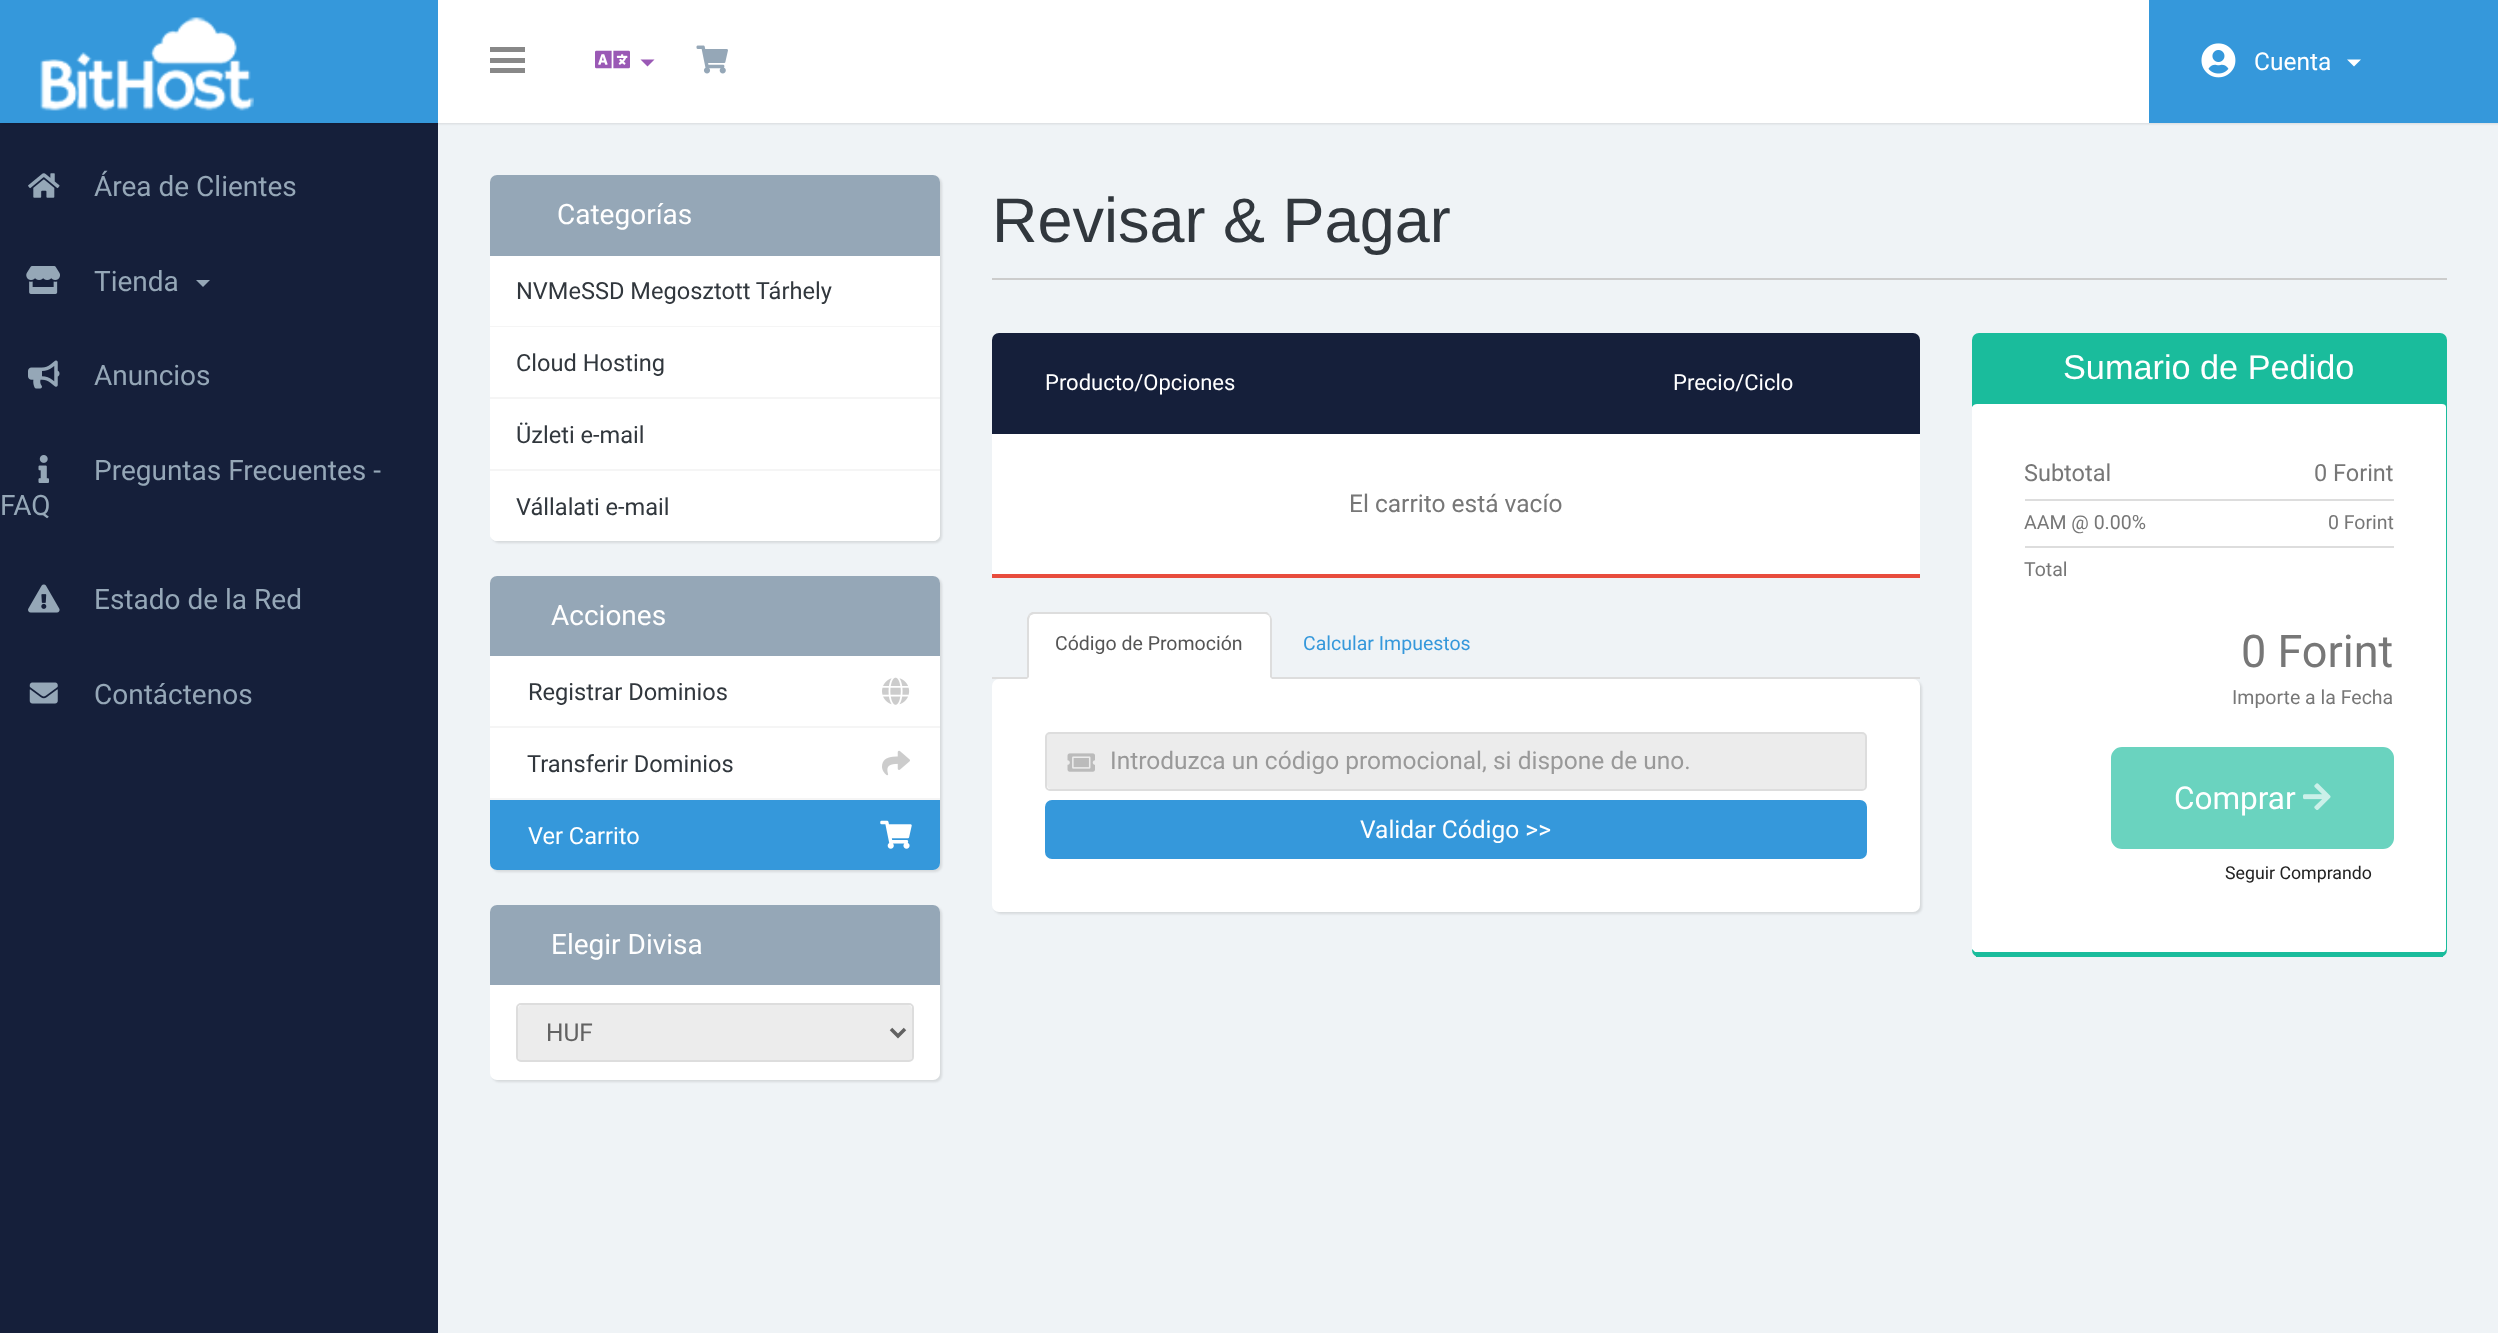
(async () => {
  const canvas = document.querySelector("canvas");
  canvas.width = 2498;
  canvas.height = 1333;
  const ctx = canvas.getContext("2d");
  ctx.miterLimit = 4;
  ctx.fontKerning = "normal";
  async function loadImage(src) {
    const img = new Image();
    img.src = src;
    await img.decode();
    return img;
  }
  let path;

  ctx.fillStyle = "#eff3f6";
  ctx.fillRect(0, 0, 2498, 1333);
  ctx.fillStyle = "#151f3a";
  ctx.fillRect(0, 123, 438, 1210);
  ctx.fillStyle = "rgba(0, 0, 0, 0.1)";
  ctx.filter = "blur(1px)";
  ctx.beginPath();
  ctx.rect(2, 2, 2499, 122);
  ctx.fill();
  ctx.filter = "none";
  ctx.fillStyle = "#ffffff";
  ctx.fillRect(438, 0, 1711, 123);
  ctx.fillStyle = "#3598db";
  ctx.fillRect(0, 0, 438, 123);
  ctx.drawImage(await loadImage("img/1.png"), 40, 17, 214, 94);
  for (const [x, y, w, h, color] of [
    [490, 47, 35, 5, "#888888"],
    [490, 58, 35, 5, "#888888"],
    [490, 68, 35, 5, "#888888"],
  ]) {
    ctx.fillStyle = color;
    ctx.fillRect(x, y, w, h);
  }
  ctx.drawImage(await loadImage("img/2.png"), 595, 50, 35, 19);
  ctx.fillStyle = "#9a59b5";
  path = new Path2D("M640.5 59.5H654.5L647.5 66.5Z");
  ctx.fill(path);
  ctx.drawImage(await loadImage("img/3.png"), 696, 45, 32, 29);
  ctx.fillStyle = "#3598db";
  ctx.fillRect(2149, 0, 349, 123);
  ctx.drawImage(await loadImage("img/4.png"), 2201, 43, 35, 35);
  ctx.fillStyle = "#ffffff";
  path = new Path2D("M2347 59.5H2361L2354 66.5Z");
  ctx.fill(path);
  ctx.drawImage(await loadImage("img/5.png"), 28, 173, 32, 25);
  ctx.drawImage(await loadImage("img/6.png"), 26, 266, 34, 28);
  ctx.fillStyle = "#95a7b7";
  path = new Path2D("M196 280H210L203 287Z");
  ctx.fill(path);
  ctx.drawImage(await loadImage("img/7.png"), 28, 360, 32, 29);
  ctx.drawImage(await loadImage("img/8.png"), 38, 455, 11, 28);
  ctx.drawImage(await loadImage("img/9.png"), 28, 584, 32, 29);
  ctx.drawImage(await loadImage("img/10.png"), 29, 682, 29, 22);
  ctx.fillStyle = "rgba(0, 0, 0, 0.1)";
  ctx.filter = "blur(1px)";
  ctx.beginPath();
  ctx.roundRect(492, 177, 450, 366, 7);
  ctx.fill();
  ctx.filter = "none";
  ctx.fillStyle = "#ffffff";
  ctx.beginPath();
  ctx.roundRect(490, 175, 450, 366, 7);
  ctx.fill();
  ctx.fillStyle = "#95a7b7";
  ctx.beginPath();
  ctx.roundRect(490, 175, 450, 81, [7, 7, 0, 0]);
  ctx.fill();
  for (const [x, y, w, h, color] of [
    [490, 326, 450, 1, "#f5f5f5"],
    [490, 397, 450, 2, "#f5f5f5"],
    [490, 469, 450, 2, "#f5f5f5"],
  ]) {
    ctx.fillStyle = color;
    ctx.fillRect(x, y, w, h);
  }
  ctx.fillStyle = "#ffffff";
  ctx.beginPath();
  ctx.roundRect(490, 471, 450, 70, [0, 0, 7, 7]);
  ctx.fill();
  ctx.fillStyle = "rgba(0, 0, 0, 0.1)";
  ctx.filter = "blur(1px)";
  ctx.beginPath();
  ctx.roundRect(492, 578, 450, 294, 7);
  ctx.fill();
  ctx.filter = "none";
  ctx.fillStyle = "#ffffff";
  ctx.beginPath();
  ctx.roundRect(490, 576, 450, 294, 7);
  ctx.fill();
  ctx.fillStyle = "#95a7b7";
  ctx.beginPath();
  ctx.roundRect(490, 576, 450, 80, [7, 7, 0, 0]);
  ctx.fill();
  ctx.fillStyle = "#f5f5f5";
  ctx.fillRect(490, 726, 450, 2);
  ctx.drawImage(await loadImage("img/11.png"), 882, 677, 28, 28);
  ctx.fillRect(490, 798, 450, 2);
  ctx.drawImage(await loadImage("img/12.png"), 882, 750, 28, 26);
  ctx.fillStyle = "#3598db";
  ctx.beginPath();
  ctx.roundRect(490, 800, 450, 70, [0, 0, 7, 7]);
  ctx.fill();
  ctx.drawImage(await loadImage("img/13.png"), 880, 820, 32, 29);
  ctx.fillStyle = "rgba(0, 0, 0, 0.1)";
  ctx.filter = "blur(1px)";
  ctx.beginPath();
  ctx.roundRect(492, 907, 450, 175, 7);
  ctx.fill();
  ctx.filter = "none";
  ctx.fillStyle = "#ffffff";
  ctx.beginPath();
  ctx.roundRect(490, 905, 450, 175, 7);
  ctx.fill();
  ctx.fillStyle = "#95a7b7";
  ctx.beginPath();
  ctx.roundRect(490, 905, 450, 80, [7, 7, 0, 0]);
  ctx.fill();
  ctx.fillStyle = "#ececec";
  path = new Path2D("M522 1005C520 1005 518 1007 518 1009V1057C518 1059 520 1061 522 1061H908C910 1061 912 1059 912 1057V1009C912 1007 910 1005 908 1005Z");
  ctx.fill(path);
  ctx.beginPath();
  ctx.roundRect(517, 1004, 396, 57, 4);
  ctx.strokeStyle = "#dddddd";
  ctx.lineWidth = 2;
  ctx.stroke();
  path = new Path2D("M891 1029L898 1036L905 1029");
  ctx.strokeStyle = "#626262";
  ctx.lineWidth = 3.5;
  ctx.stroke(path);
  ctx.fillStyle = "#cccccc";
  ctx.fillRect(992, 278, 1455, 2);
  ctx.fillStyle = "#151f3a";
  ctx.beginPath();
  ctx.roundRect(992, 333, 928, 101, [7, 7, 0, 0]);
  ctx.fill();
  for (const [x, y, w, h, color] of [
    [992, 574, 928, 4, "#e84c3d"],
    [992, 434, 928, 140, "#ffffff"],
    [992, 677, 928, 2, "#dddddd"],
  ]) {
    ctx.fillStyle = color;
    ctx.fillRect(x, y, w, h);
  }
  ctx.fillStyle = "rgba(0, 0, 0, 0.1)";
  ctx.filter = "blur(1px)";
  ctx.beginPath();
  ctx.roundRect(994, 681, 928, 233, 7);
  ctx.fill();
  ctx.filter = "none";
  ctx.fillStyle = "#ffffff";
  ctx.beginPath();
  ctx.roundRect(1027, 613, 245, 66, [7, 7, 0, 0]);
  ctx.fill();
  ctx.fillStyle = "#dddddd";
  path = new Path2D("M1034 614C1033 614 1031 615 1030 616L1029 614L1032 612H1267L1270 615L1269 616C1268 615 1267 614 1265 614Z");
  ctx.fill(path);
  path = new Path2D("M1270 615C1271 616 1272 618 1272 620V679L1270 677V620C1270 619 1270 617 1269 616Z");
  ctx.fill(path);
  path = new Path2D("M1027 679V618L1029 614L1030 616C1030 617 1029 618 1029 620V677Z");
  ctx.fill(path);
  ctx.fillStyle = "#ffffff";
  ctx.beginPath();
  ctx.roundRect(992, 679, 928, 233, 7);
  ctx.fill();
  ctx.fillStyle = "#ececec";
  path = new Path2D("M1051 733C1049 733 1047 734 1047 736V785C1047 787 1049 789 1051 789H1862C1864 789 1866 787 1866 785V737C1866 735 1864 733 1862 733Z");
  ctx.fill(path);
  ctx.beginPath();
  ctx.roundRect(1046, 733, 820, 57, 4);
  ctx.strokeStyle = "#dddddd";
  ctx.lineWidth = 2;
  ctx.stroke();
  ctx.drawImage(await loadImage("img/14.png"), 1067, 753, 28, 19);
  ctx.fillStyle = "#3598db";
  ctx.beginPath();
  ctx.roundRect(1046, 801, 820, 57, 6);
  ctx.fill();
  ctx.strokeStyle = "#3598db";
  ctx.stroke();
  ctx.fillStyle = "#1abc9c";
  ctx.beginPath();
  ctx.roundRect(1972, 333, 475, 624, 7);
  ctx.fill();
  ctx.fillRect(1976, 956, 467, 1);
  ctx.fillStyle = "#ffffff";
  path = new Path2D("M1977 404H2442C2444 404 2446 405 2446 407V949C2446 950 2445 951 2444 952H2440H1975C1974 951 1973 950 1972 949V407C1973 405 1975 404 1977 404Z");
  ctx.fill(path);
  ctx.fillStyle = "#dddddd";
  ctx.fillRect(2025, 499, 369, 2);
  ctx.fillRect(2025, 546, 369, 2);
  ctx.fillStyle = "#6ad3bf";
  ctx.beginPath();
  ctx.roundRect(2113, 749, 279, 98, 9);
  ctx.fill();
  ctx.strokeStyle = "#6ad3bf";
  ctx.lineWidth = 4;
  ctx.stroke();
  ctx.drawImage(await loadImage("img/15.png"), 2303, 783, 28, 27);
  ctx.font = "24.5px Roboto";
  ctx.fillStyle = "#ffffff";
  ctx.fillText("Cuenta", 2254, 70);
  ctx.font = "28px Roboto";
  ctx.fillStyle = "#95a7b7";
  for (const [text, x, y] of [
    ["Área de Clientes", 94, 196],
    ["Tienda", 94, 291],
    ["Anuncios", 94, 385],
    ["Preguntas Frecuentes -", 94, 480],
    ["FAQ", 0, 515],
    ["Estado de la Red", 94, 609],
    ["Contáctenos", 94, 704],
  ]) {
    ctx.fillText(text, x, y);
  }
  ctx.fillStyle = "#ffffff";
  ctx.fillText("Categorías", 557, 224);
  ctx.font = "23.6px Roboto";
  ctx.fillStyle = "#31373d";
  for (const [text, x, y] of [
    ["NVMeSSD Megosztott Tárhely", 516, 299],
    ["Cloud Hosting", 516, 371],
    ["Üzleti e-mail", 516, 443],
    ["Vállalati e-mail", 516, 515],
  ]) {
    ctx.fillText(text, x, y);
  }
  ctx.font = "28px Roboto";
  ctx.fillStyle = "#ffffff";
  ctx.fillText("Acciones", 551, 625);
  ctx.font = "23.6px Roboto";
  ctx.fillStyle = "#31373d";
  ctx.fillText("Registrar Dominios", 528, 700);
  ctx.fillText("Transferir Dominios", 527, 772);
  ctx.fillStyle = "#ffffff";
  ctx.fillText("Ver Carrito", 528, 844);
  ctx.font = "28px Roboto";
  ctx.fillText("Elegir Divisa", 551, 954);
  ctx.font = "24.5px Roboto";
  ctx.fillStyle = "#626262";
  ctx.fillText("HUF", 546, 1041);
  ctx.font = "63px Liberation Sans";
  ctx.fillStyle = "#31373d";
  ctx.fillText("Revisar & Pagar", 992, 242);
  ctx.font = "22px Roboto";
  ctx.fillStyle = "#ffffff";
  ctx.fillText("Producto/Opciones", 1045, 390);
  ctx.fillText("Precio/Ciclo", 1673, 390);
  ctx.font = "24.5px Roboto";
  ctx.fillStyle = "#777777";
  ctx.fillText("El carrito está vacío", 1349, 512);
  ctx.font = "19.5px Roboto";
  ctx.fillStyle = "#555555";
  ctx.fillText("Código de Promoción", 1055, 650);
  ctx.fillStyle = "#3598db";
  ctx.fillText("Calcular Impuestos", 1303, 650);
  ctx.font = "24.5px Roboto";
  ctx.fillStyle = "#999999";
  ctx.fillText("Introduzca un código promocional, si dispone de uno.", 1110, 769);
  ctx.fillStyle = "#ffffff";
  ctx.fillText("Validar Código >>", 1360, 838);
  ctx.font = "34.25px Liberation Sans";
  ctx.fillText("Sumario de Pedido", 2063, 379);
  ctx.font = "23.5px Roboto";
  ctx.fillStyle = "#777777";
  ctx.fillText("Subtotal", 2024, 481);
  ctx.fillText("0 Forint", 2314, 481);
  ctx.font = "19.5px Roboto";
  for (const [text, x, y] of [
    ["AAM @ 0.00%", 2024, 529],
    ["0 Forint", 2328, 529],
    ["Total", 2024, 576],
  ]) {
    ctx.fillText(text, x, y);
  }
  ctx.font = "45px Roboto";
  ctx.fillText("0 Forint", 2241, 667);
  ctx.font = "19.5px Roboto";
  ctx.fillText("Importe a la Fecha", 2232, 704);
  ctx.font = "31.5px Roboto";
  ctx.fillStyle = "#ffffff";
  ctx.fillText("Comprar", 2174, 809);
  ctx.font = "17.75px Roboto";
  ctx.fillStyle = "#222222";
  ctx.fillText("Seguir Comprando", 2225, 879);
})();
